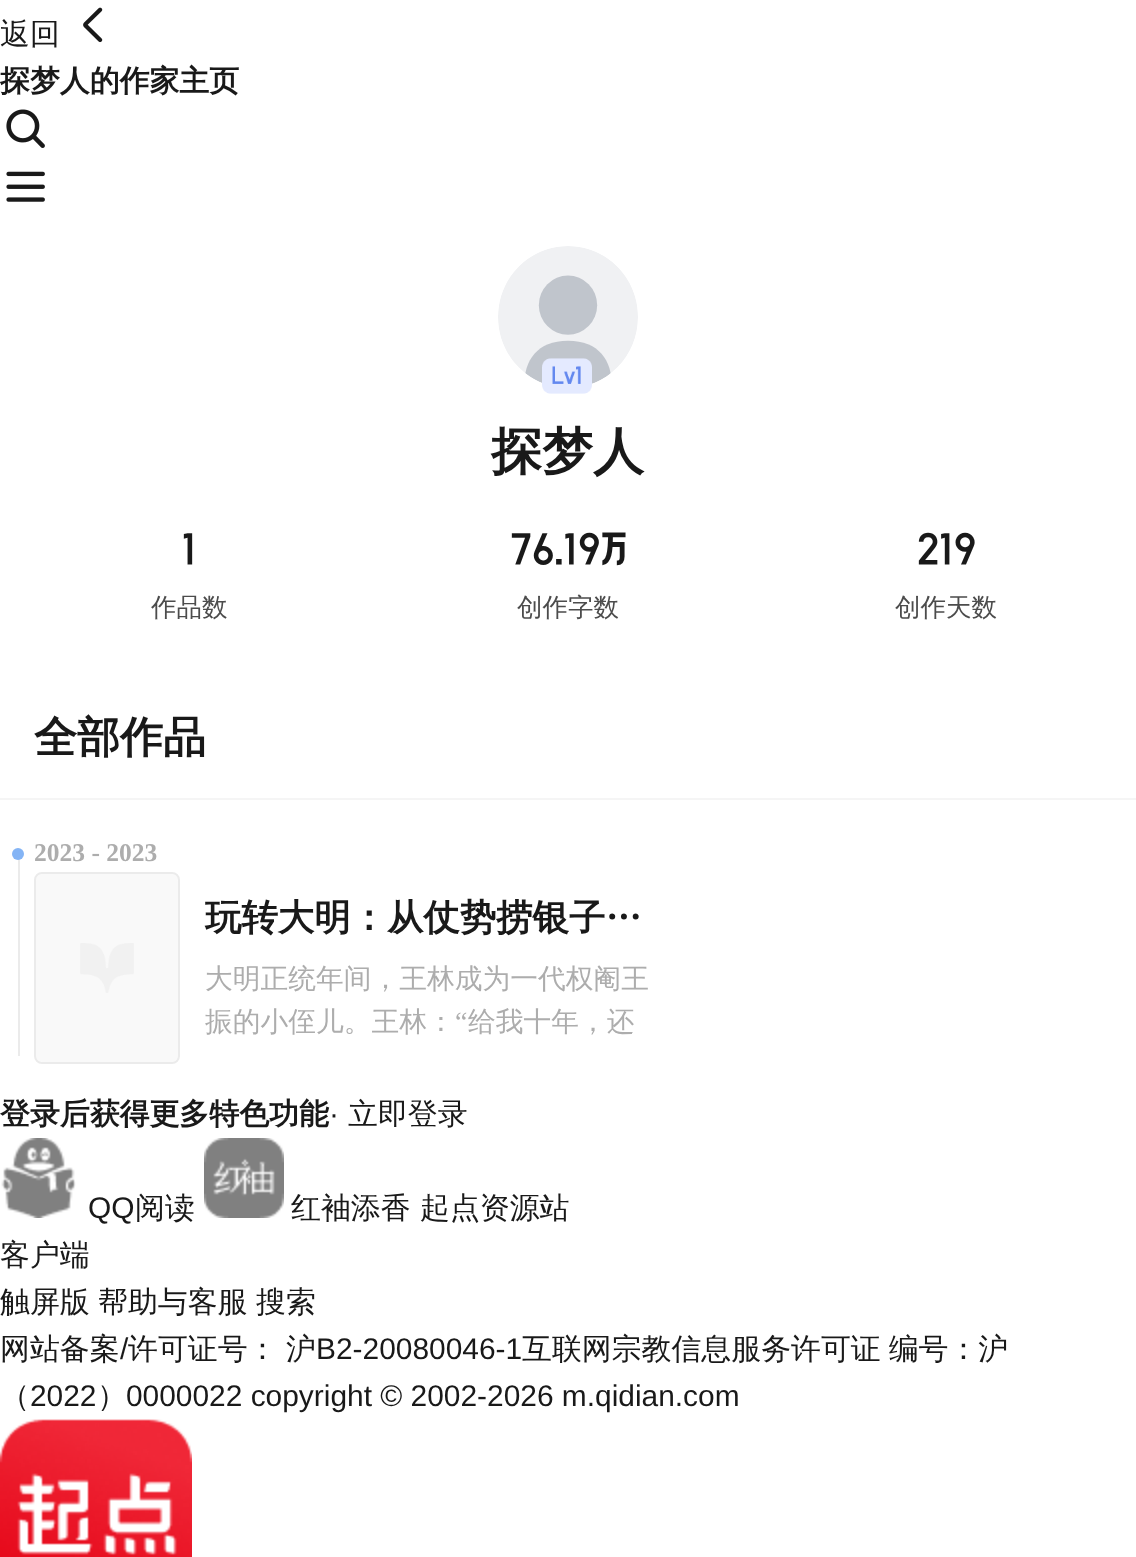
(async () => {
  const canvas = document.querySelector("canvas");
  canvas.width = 1136;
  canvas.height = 1557;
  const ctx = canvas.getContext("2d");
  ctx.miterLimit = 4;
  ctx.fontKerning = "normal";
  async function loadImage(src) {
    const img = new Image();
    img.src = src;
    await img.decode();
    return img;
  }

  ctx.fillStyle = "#ffffff";
  ctx.fillRect(0, 0, 1136, 1557);
  ctx.drawImage(await loadImage("img/1.png"), 83, 7, 20, 36);
  ctx.drawImage(await loadImage("img/2.png"), 6, 109, 39, 39);
  ctx.drawImage(await loadImage("img/3.png"), 6, 171, 39, 31);
  ctx.drawImage(await loadImage("img/4.png"), 498, 246, 140, 138);
  ctx.drawImage(await loadImage("img/5.png"), 542, 358, 50, 36);
  ctx.fillStyle = "#f5f5f5";
  ctx.fillRect(0, 798, 1136, 2);
  ctx.fillStyle = "#ebebeb";
  ctx.fillRect(18, 859, 2, 197);
  ctx.fillStyle = "#84b4f5";
  ctx.beginPath();
  ctx.arc(18, 854, 6, 0, Math.PI * 2);
  ctx.fill();
  ctx.beginPath();
  ctx.roundRect(35, 873, 144, 190, 7);
  ctx.strokeStyle = "#ebebeb";
  ctx.lineWidth = 2;
  ctx.stroke();
  ctx.drawImage(await loadImage("img/6.png"), 36, 874, 142, 188);
  ctx.drawImage(await loadImage("img/7.png"), 1, 1138, 75, 80);
  ctx.drawImage(await loadImage("img/8.png"), 204, 1138, 80, 80);
  ctx.drawImage(await loadImage("img/9.png"), 0, 1419, 192, 138);
  ctx.font = "500 29.9px WenQuanYi Zen Hei";
  ctx.fillStyle = "#191919";
  ctx.fillText("返回", 0, 44);
  ctx.font = "bold 29.9px WenQuanYi Zen Hei";
  ctx.fillText("探梦人的作家主页", 0, 91);
  ctx.font = "bold 51px WenQuanYi Zen Hei";
  ctx.fillText("探梦人", 491, 469);
  ctx.font = "43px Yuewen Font";
  ctx.fillText("1", 182, 564);
  ctx.font = "500 25.5px WenQuanYi Zen Hei";
  ctx.fillStyle = "#4c4c4c";
  ctx.fillText("作品数", 151, 616);
  ctx.font = "43px Yuewen Font";
  ctx.fillStyle = "#191919";
  ctx.fillText("76.19万", 510, 564);
  ctx.font = "500 25.5px WenQuanYi Zen Hei";
  ctx.fillStyle = "#4c4c4c";
  ctx.fillText("创作字数", 517, 616);
  ctx.font = "43px Yuewen Font";
  ctx.fillStyle = "#191919";
  ctx.fillText("219", 917, 564);
  ctx.font = "500 25.5px WenQuanYi Zen Hei";
  ctx.fillStyle = "#4c4c4c";
  ctx.fillText("创作天数", 895, 616);
  ctx.font = "bold 43px WenQuanYi Zen Hei";
  ctx.fillStyle = "#191919";
  ctx.fillText("全部作品", 34, 752);
  ctx.font = "bold 25.5px Liberation Serif";
  ctx.fillStyle = "#adadad";
  ctx.fillText("2023 - 2023", 34, 861);
  ctx.font = "bold 36.4px WenQuanYi Zen Hei";
  ctx.fillStyle = "#191919";
  ctx.fillText("玩转大明：从仗势捞银子…", 205, 930);
  ctx.font = "500 27.75px WenQuanYi Zen Hei";
  ctx.fillStyle = "#adadad";
  ctx.fillText("大明正统年间，王林成为一代权阉王", 205, 988);
  ctx.fillText("振的小侄儿。王林：", 205, 1031);
  ctx.font = "27.75px Liberation Serif";
  ctx.fillText("“", 455, 1031);
  ctx.font = "500 27.75px WenQuanYi Zen Hei";
  ctx.fillText("给我十年，还", 468, 1031);
  ctx.font = "bold 29.9px WenQuanYi Zen Hei";
  ctx.fillStyle = "#191919";
  ctx.fillText("登录后获得更多特色功能", 0, 1124);
  ctx.font = "29.9px Liberation Sans";
  ctx.fillText("·", 329, 1124);
  ctx.font = "500 29.9px WenQuanYi Zen Hei";
  ctx.fillText("立即登录", 348, 1124);
  ctx.font = "29.9px Liberation Sans";
  ctx.fillText("QQ", 88, 1218);
  ctx.font = "500 29.9px WenQuanYi Zen Hei";
  for (const [text, x, y] of [
    ["阅读", 135, 1218],
    ["红袖添香", 291, 1218],
    ["起点资源站", 420, 1218],
    ["客户端", 0, 1265],
    ["触屏版", 0, 1312],
    ["帮助与客服", 98, 1312],
    ["搜索", 256, 1312],
    ["网站备案", 0, 1359],
  ]) {
    ctx.fillText(text, x, y);
  }
  ctx.font = "29.9px Liberation Sans";
  ctx.fillText("/", 120, 1359);
  ctx.font = "500 29.9px WenQuanYi Zen Hei";
  ctx.fillText("许可证号：", 128, 1359);
  ctx.fillText("沪", 286, 1359);
  ctx.font = "29.9px Liberation Sans";
  ctx.fillText("B2-20080046-1", 316, 1359);
  ctx.wordSpacing = "-1px";
  ctx.font = "500 29.9px WenQuanYi Zen Hei";
  ctx.fillText("互联网宗教信息服务许可证 编号：沪", 522, 1359);
  ctx.wordSpacing = "0px";
  ctx.fillText("（", 0, 1406);
  ctx.font = "29.9px Liberation Sans";
  ctx.fillText("2022", 30, 1406);
  ctx.font = "500 29.9px WenQuanYi Zen Hei";
  ctx.fillText("）", 97, 1406);
  ctx.font = "29.9px Liberation Sans";
  ctx.fillText("0000022 copyright © 2002-2026 m.qidian.com", 126, 1406);
})();
